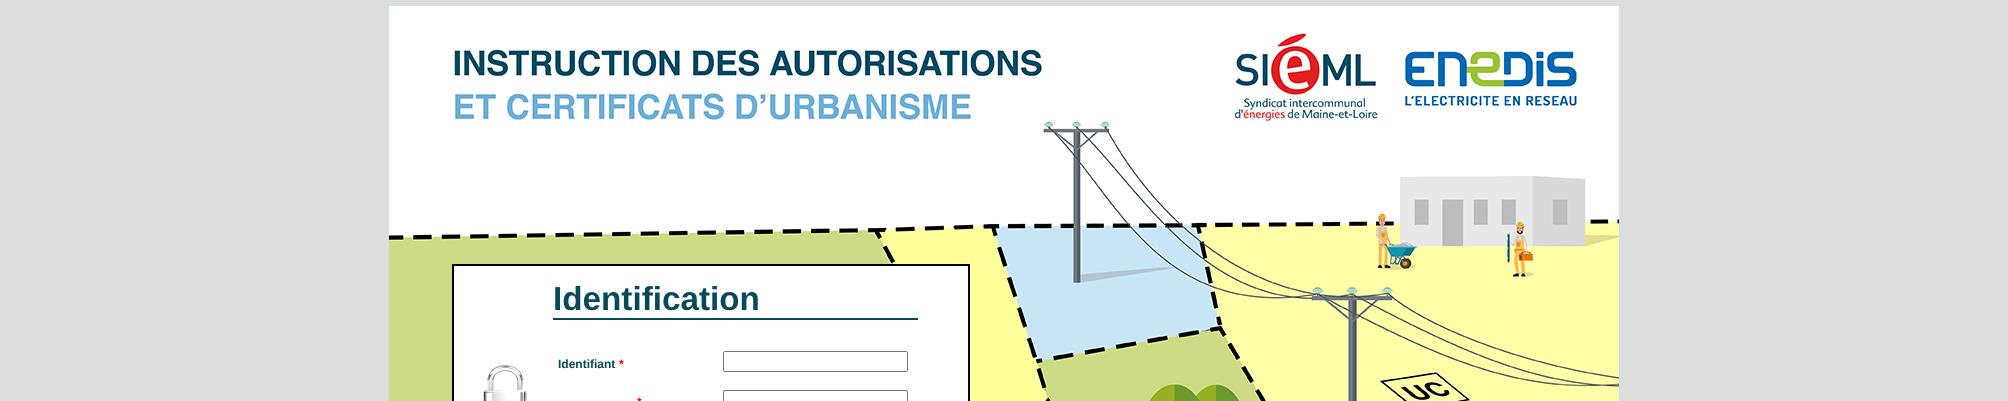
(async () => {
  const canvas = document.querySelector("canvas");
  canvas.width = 2008;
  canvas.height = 401;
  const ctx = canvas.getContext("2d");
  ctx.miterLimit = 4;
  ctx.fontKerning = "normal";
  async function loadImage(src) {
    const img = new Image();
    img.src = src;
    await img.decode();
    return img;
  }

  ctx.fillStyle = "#dddddd";
  ctx.fillRect(0, 0, 2008, 401);
  ctx.fillStyle = "#ffffff";
  ctx.fillRect(389, 6, 1230, 27);
  ctx.drawImage(await loadImage("img/1.png"), 389, 33, 1230, 368);
  ctx.strokeStyle = "#c9e0ed";
  ctx.strokeRect(388.5, 5.5, 1231, 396);
  ctx.beginPath();
  ctx.rect(453, 265, 516, 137);
  ctx.fill();
  ctx.strokeStyle = "#000000";
  ctx.lineWidth = 2;
  ctx.stroke();
  ctx.drawImage(await loadImage("img/2.png"), 483, 365, 45, 36);
  ctx.fillStyle = "#06495a";
  ctx.fillRect(553, 318, 365, 2);
  ctx.beginPath();
  ctx.roundRect(723.5, 351.5, 184, 20, 1.5);
  ctx.strokeStyle = "#767676";
  ctx.lineWidth = 1;
  ctx.stroke();
  ctx.beginPath();
  ctx.roundRect(723.5, 390.5, 184, 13, 1.5);
  ctx.stroke();
  ctx.font = "bold 33.25px Liberation Sans";
  ctx.fillText("Identification", 553, 310);
  ctx.font = "bold 12px Liberation Sans";
  ctx.fillText("Identifiant", 558, 368);
  ctx.fillStyle = "#ff0000";
  ctx.fillText("*", 619, 368);
  ctx.fillText("*", 637, 406);
})();
